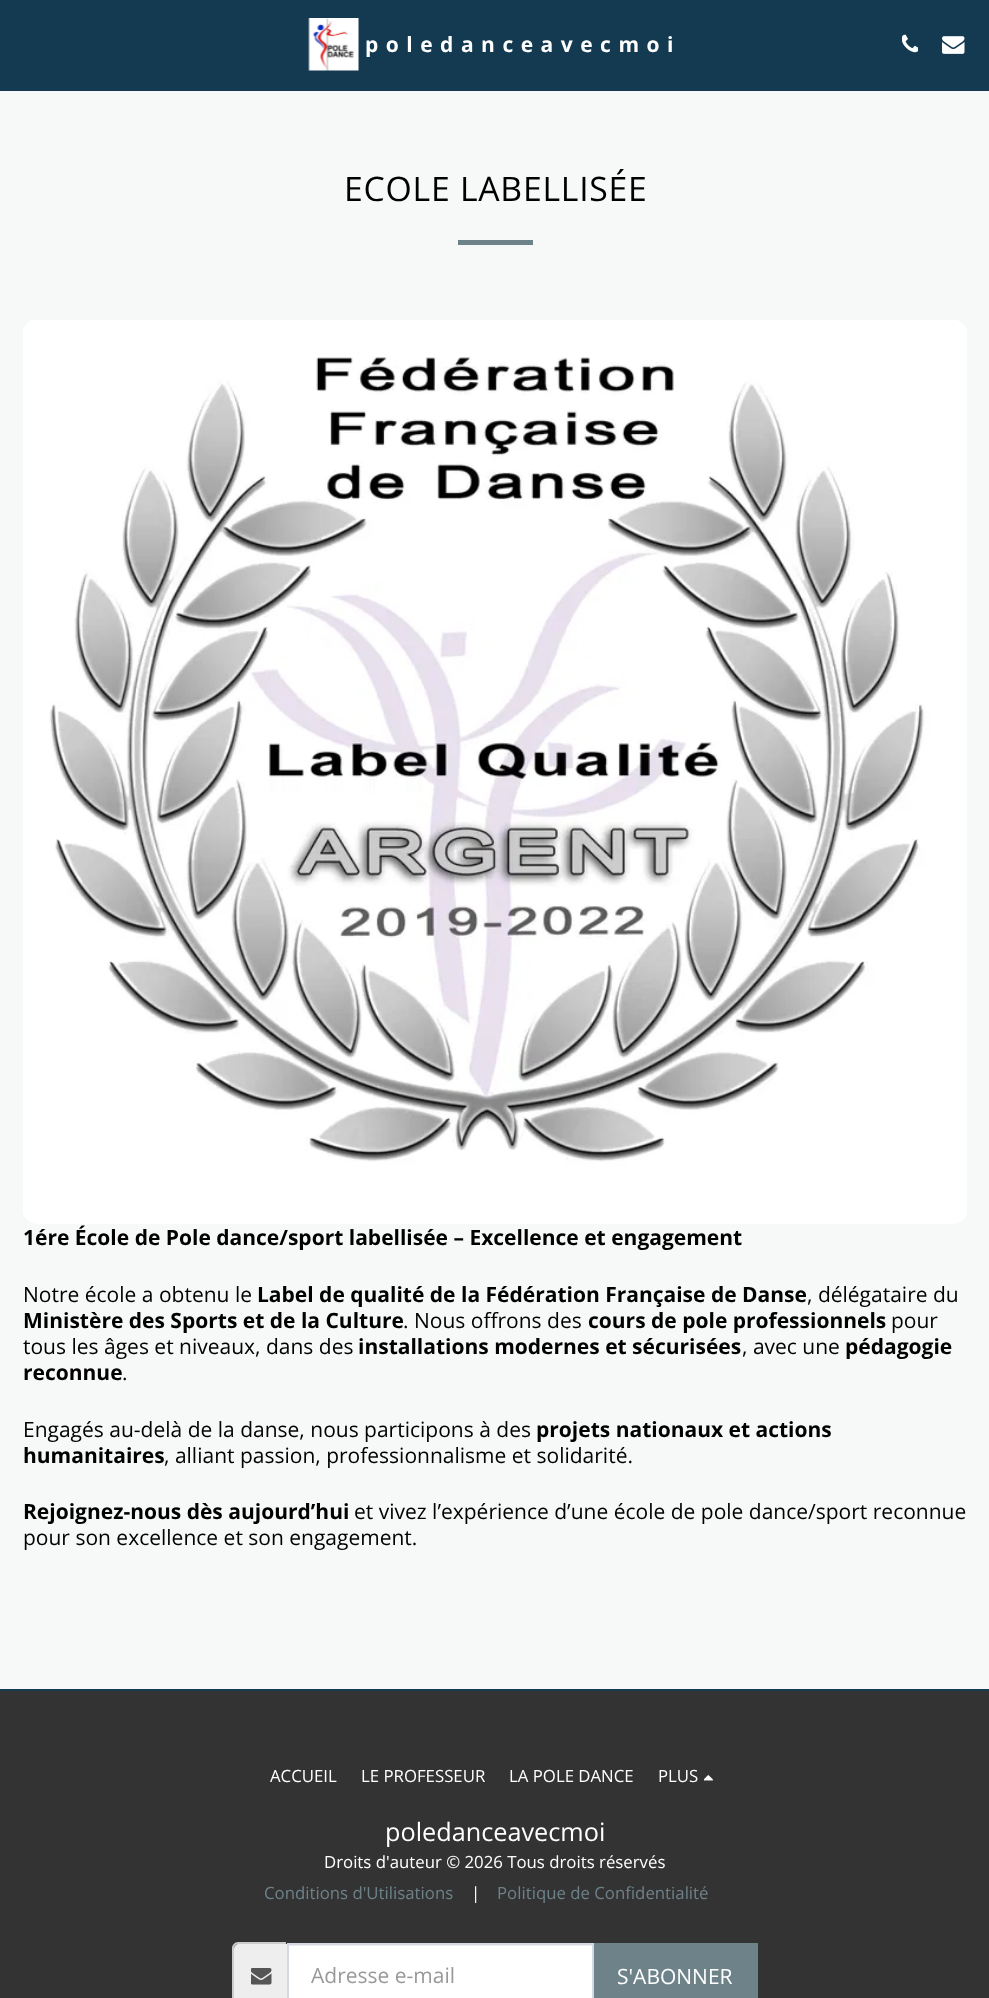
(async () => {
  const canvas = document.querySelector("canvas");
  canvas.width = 989;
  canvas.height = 1998;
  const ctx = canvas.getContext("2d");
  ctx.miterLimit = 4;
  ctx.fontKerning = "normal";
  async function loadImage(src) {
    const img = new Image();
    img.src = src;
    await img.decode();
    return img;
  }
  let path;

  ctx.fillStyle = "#f7f9f8";
  ctx.fillRect(0, 0, 989, 1998);
  ctx.fillStyle = "#143a52";
  ctx.fillRect(0, 0, 989, 91);
  ctx.drawImage(await loadImage("img/1.png"), 308, 18, 51, 53);
  ctx.drawImage(await loadImage("img/2.png"), 902, 34, 16, 19);
  ctx.drawImage(await loadImage("img/3.png"), 942, 36, 23, 18);
  ctx.fillStyle = "#6e828a";
  ctx.fillRect(458, 240, 75, 5);
  ctx.drawImage(await loadImage("img/4.png"), 23, 320, 944, 904);
  ctx.fillStyle = "#333333";
  ctx.fillRect(0, 1691, 989, 307);
  ctx.fillStyle = "#143a52";
  ctx.fillRect(0, 1689, 989, 2);
  ctx.drawImage(await loadImage("img/5.png"), 704, 1775, 9, 6);
  ctx.fillStyle = "#eeeeee";
  path = new Path2D("M239 1944H287V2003H239C236 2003 234 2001 234 1998V1949C234 1946 236 1944 239 1944Z");
  ctx.fill(path);
  ctx.fillStyle = "#cccccc";
  path = new Path2D("M238 1942H286V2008H238C235 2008 232 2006 232 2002V1948C232 1945 235 1942 238 1942ZM238 1944H286V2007H238C236 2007 234 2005 234 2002V1948C234 1946 236 1944 238 1944Z");
  ctx.fill(path, "evenodd");
  ctx.drawImage(await loadImage("img/6.png"), 251, 1968, 21, 17);
  ctx.fillStyle = "#ffffff";
  ctx.fillRect(289, 1946, 303, 52);
  ctx.fillStyle = "#ececec";
  ctx.fillRect(288, 1945, 305, 1);
  ctx.strokeStyle = "#d4d7e5";
  ctx.lineWidth = 2;
  ctx.strokeRect(288, 1944, 305, 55);
  ctx.fillStyle = "#6e828a";
  ctx.fillRect(594, 1943, 164, 55);
  ctx.letterSpacing = "7.5px";
  ctx.font = "bold 21px Open Sans";
  ctx.fillStyle = "#ffffff";
  ctx.fillText("poledanceavecmoi", 365, 52);
  ctx.letterSpacing = "0.75px";
  ctx.font = "33.75px Open Sans";
  ctx.fillStyle = "#000000";
  ctx.fillText("ECOLE LABELLISÉE", 344, 201);
  ctx.letterSpacing = "0px";
  ctx.font = "bold 21px Open Sans";
  ctx.fillText("1ére École de Pole dance/sport labellisée – Excellence et engagement", 23, 1245);
  ctx.font = "21px Open Sans";
  ctx.fillText("Notre école a obtenu le", 23, 1302);
  ctx.font = "bold 21px Open Sans";
  ctx.fillText("Label de qualité de la Fédération Française de Danse", 257, 1302);
  ctx.font = "21px Open Sans";
  ctx.fillText(", délégataire du", 807, 1302);
  ctx.font = "bold 21px Open Sans";
  ctx.fillText("Ministère des Sports et de la Culture", 23, 1328);
  ctx.font = "21px Open Sans";
  ctx.fillText(". Nous offrons des", 403, 1328);
  ctx.font = "bold 21px Open Sans";
  ctx.fillText("cours de pole professionnels", 588, 1328);
  ctx.font = "21px Open Sans";
  ctx.fillText("pour", 891, 1328);
  ctx.fillText("tous les âges et niveaux, dans des", 23, 1354);
  ctx.font = "bold 21px Open Sans";
  ctx.fillText("installations modernes et sécurisées", 358, 1354);
  ctx.font = "21px Open Sans";
  ctx.fillText(", avec une", 742, 1354);
  ctx.font = "bold 21px Open Sans";
  ctx.fillText("pédagogie", 845, 1354);
  ctx.fillText("reconnue", 23, 1380);
  ctx.font = "21px Open Sans";
  ctx.fillText(".", 122, 1380);
  ctx.fillText("Engagés au-delà de la danse, nous participons à des", 23, 1437);
  ctx.font = "bold 21px Open Sans";
  ctx.fillText("projets nationaux et actions", 536, 1437);
  ctx.fillText("humanitaires", 23, 1463);
  ctx.font = "21px Open Sans";
  ctx.fillText(", alliant passion, professionnalisme et solidarité.", 164, 1463);
  ctx.font = "bold 21px Open Sans";
  ctx.fillText("Rejoignez-nous dès aujourd’hui", 23, 1519);
  ctx.font = "21px Open Sans";
  ctx.fillText("et vivez l’expérience d’une école de pole dance/sport reconnue", 354, 1519);
  ctx.fillText("pour son excellence et son engagement.", 23, 1545);
  ctx.font = "16.8px Open Sans";
  ctx.fillStyle = "#ffffff";
  for (const [text, x, y] of [
    ["ACCUEIL", 270, 1782],
    ["LE PROFESSEUR", 361, 1782],
    ["LA POLE DANCE", 509, 1782],
    ["PLUS", 658, 1782],
  ]) {
    ctx.fillText(text, x, y);
  }
  ctx.font = "25.25px Open Sans";
  ctx.fillText("poledanceavecmoi", 385, 1841);
  ctx.font = "16.8px Open Sans";
  ctx.fillText("Droits d'auteur © 2026 Tous droits réservés", 324, 1868);
  ctx.fillStyle = "#6e828a";
  ctx.fillText("Conditions d'Utilisations", 264, 1899);
  ctx.fillStyle = "#ffffff";
  ctx.fillText("|", 471, 1899);
  ctx.fillStyle = "#6e828a";
  ctx.fillText("Politique de Confidentialité", 497, 1899);
  ctx.font = "21px Open Sans";
  ctx.fillStyle = "#999999";
  ctx.fillText("Adresse e-mail", 311, 1983);
  ctx.fillStyle = "#ffffff";
  ctx.fillText("S'ABONNER", 617, 1984);
})();
